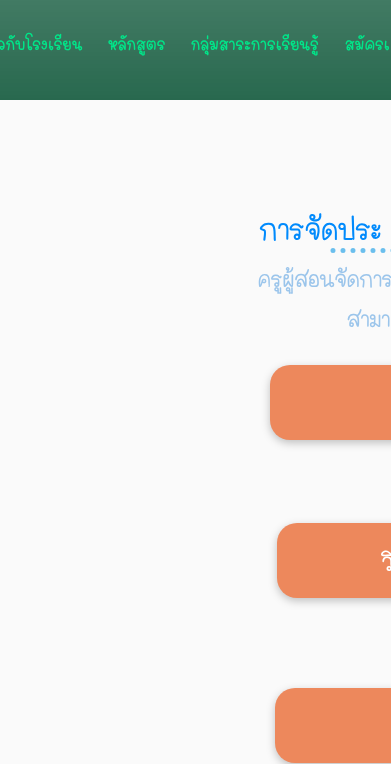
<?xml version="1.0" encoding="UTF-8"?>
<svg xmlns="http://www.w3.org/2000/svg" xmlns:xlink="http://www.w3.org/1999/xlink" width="391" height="764">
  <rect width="100%" height="100%" fill="#fafafa" />
  <rect width="391" height="100" fill="#004d2e" />
  <image x="0" y="0" width="391" height="100" xlink:href="image1.png" />
  <path d="M 333 250.5 h 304" fill="none" stroke="#6bbfed" stroke-width="5" stroke-linecap="round" stroke-dasharray="0 10" />
  <rect x="270" y="368" width="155" height="75" rx="20" fill="#000000" fill-opacity="0.23" filter="blur(4.5px)" />
  <rect x="270" y="365" width="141" height="75" rx="20" fill="#ed885c" />
  <rect x="277" y="526" width="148" height="75" rx="20" fill="#000000" fill-opacity="0.23" filter="blur(4.5px)" />
  <rect x="277" y="523" width="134" height="75" rx="20" fill="#ed885c" />
  <rect x="275" y="691" width="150" height="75" rx="20" fill="#000000" fill-opacity="0.23" filter="blur(4.5px)" />
  <rect x="275" y="688" width="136" height="75" rx="20" fill="#ed885c" />
  <text x="-2" y="50" style="font-family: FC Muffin; font-size: 24px; fill: #00e689">วกับโรงเรียน</text>
  <text x="108" y="50" style="font-family: FC Muffin; font-size: 24px; fill: #00e689">หลักสูตร</text>
  <text x="191" y="50" style="font-family: FC Muffin; font-size: 24px; fill: #00e689">กลุ่มสาระการเรียนรู้</text>
  <text x="345" y="50" style="font-family: FC Muffin; font-size: 24px; fill: #00e689">สมัครเ</text>
  <text x="259" y="240" style="font-family: 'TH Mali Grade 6'; font-size: 44px; font-weight: bold; fill: #008afc">การจัดประ</text>
  <text x="257" y="287" style="font-family: 'TH Mali Grade 6'; font-size: 33px; font-weight: bold; fill: #9bc5eb">ครูผู้สอนจัดการ</text>
  <text x="346" y="327" style="font-family: 'TH Mali Grade 6'; font-size: 33px; font-weight: bold; fill: #9bc5eb">สามา</text>
  <text x="382" y="571" style="font-family: 'TH Mali Grade 6'; font-size: 36px; font-weight: bold; fill: #ffffff">วิ</text>
</svg>
